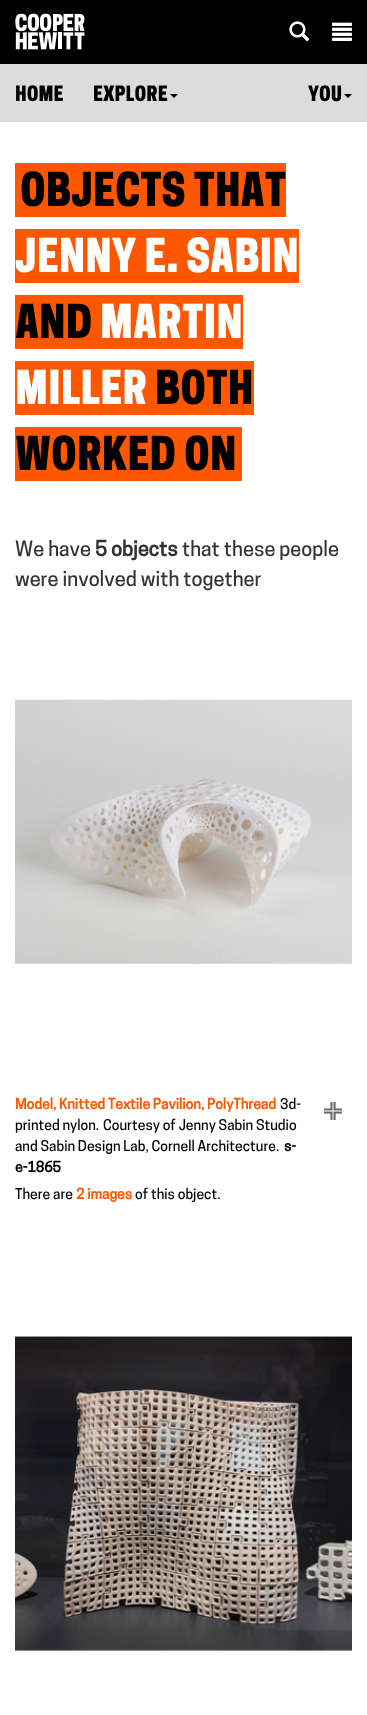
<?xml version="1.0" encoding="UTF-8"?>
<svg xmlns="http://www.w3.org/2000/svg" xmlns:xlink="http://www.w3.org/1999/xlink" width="367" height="1715">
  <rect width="100%" height="100%" fill="#ffffff" />
  <rect width="367" height="64" fill="#000000" />
  <image x="15" y="13" width="70" height="37" xlink:href="image1.png" />
  <image x="289" y="21" width="21" height="21" xlink:href="image2.png" />
  <image x="332" y="22" width="20" height="19" xlink:href="image3.png" />
  <rect y="64" width="367" height="58" fill="#dcdcdc" />
  <path d="M 170 94 h 8 l -4 4 z" fill="#000000" />
  <path d="M 344 94 h 8 l -4 4 z" fill="#000000" />
  <rect x="15" y="163" width="271" height="54" fill="#ff5700" />
  <rect x="15" y="229" width="284" height="54" fill="#ff5700" />
  <rect x="15" y="295" width="228" height="54" fill="#ff5700" />
  <rect x="15" y="361" width="239" height="54" fill="#ff5700" />
  <rect x="15" y="427" width="227" height="54" fill="#ff5700" />
  <image x="15" y="699" width="337" height="265" xlink:href="image4.png" />
  <image x="324" y="1102" width="18" height="18" xlink:href="image5.png" />
  <image x="15" y="1336" width="337" height="315" xlink:href="image6.png" />
  <text x="15" y="101" style="font-family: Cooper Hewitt; font-size: 20px; font-weight: 600; fill: #000000">HOME</text>
  <text x="93" y="101" style="font-family: Cooper Hewitt; font-size: 20px; font-weight: 600; fill: #000000">EXPLORE</text>
  <text x="308" y="101" style="font-family: Cooper Hewitt; font-size: 20px; font-weight: 600; fill: #000000">YOU</text>
  <text x="20" y="206" style="font-family: Cooper Hewitt; font-size: 44px; font-weight: 600; fill: #000000">OBJECTS THAT</text>
  <text x="15" y="272" style="font-family: Cooper Hewitt; font-size: 44px; font-weight: 600; fill: #ffffff">JENNY E. SABIN</text>
  <text x="15" y="338" style="font-family: Cooper Hewitt; font-size: 44px; font-weight: 600; fill: #000000">AND</text>
  <text x="100" y="338" style="font-family: Cooper Hewitt; font-size: 44px; font-weight: 600; fill: #ffffff">MARTIN</text>
  <text x="15" y="404" style="font-family: Cooper Hewitt; font-size: 44px; font-weight: 600; fill: #ffffff">MILLER</text>
  <text x="155" y="404" style="font-family: Cooper Hewitt; font-size: 44px; font-weight: 600; fill: #000000">BOTH</text>
  <text x="15" y="470" style="font-family: Cooper Hewitt; font-size: 44px; font-weight: 600; fill: #000000">WORKED ON</text>
  <text x="15" y="556" style="font-family: Cooper Hewitt; font-size: 20px; font-weight: 500; fill: #333333">We have</text>
  <text x="95" y="556" style="font-family: Cooper Hewitt; font-size: 20px; font-weight: bold; fill: #333333">5 objects</text>
  <text x="182" y="556" style="font-family: Cooper Hewitt; font-size: 20px; font-weight: 500; fill: #333333">that these people</text>
  <text x="15" y="586" style="font-family: Cooper Hewitt; font-size: 20px; font-weight: 500; fill: #333333">were involved with together</text>
  <text x="15" y="1109" style="font-family: Cooper Hewitt; font-size: 14px; font-weight: bold; fill: #ff5700">Model, Knitted Textile Pavilion, PolyThread</text>
  <text x="280" y="1109" style="font-family: Cooper Hewitt; font-size: 14px; font-weight: 500; fill: #000000">3d-</text>
  <text x="15" y="1130" style="font-family: Cooper Hewitt; font-size: 14px; font-weight: 500; fill: #000000">printed nylon.</text>
  <text x="103" y="1130" style="font-family: Cooper Hewitt; font-size: 14px; font-weight: 500; fill: #000000">Courtesy of Jenny Sabin Studio</text>
  <text x="15" y="1151" style="font-family: Cooper Hewitt; font-size: 14px; font-weight: 500; fill: #000000">and Sabin Design Lab, Cornell Architecture.</text>
  <text x="284" y="1151" style="font-family: Cooper Hewitt; font-size: 14px; font-weight: bold; fill: #000000">s-</text>
  <text x="15" y="1172" style="font-family: Cooper Hewitt; font-size: 14px; font-weight: bold; fill: #000000">e-1865</text>
  <text x="15" y="1199" style="font-family: Cooper Hewitt; font-size: 14px; font-weight: 500; fill: #000000">There are</text>
  <text x="76" y="1199" style="font-family: Cooper Hewitt; font-size: 14px; font-weight: bold; fill: #ff5700">2 images</text>
  <text x="135" y="1199" style="font-family: Cooper Hewitt; font-size: 14px; font-weight: 500; fill: #000000">of this object.</text>
</svg>
